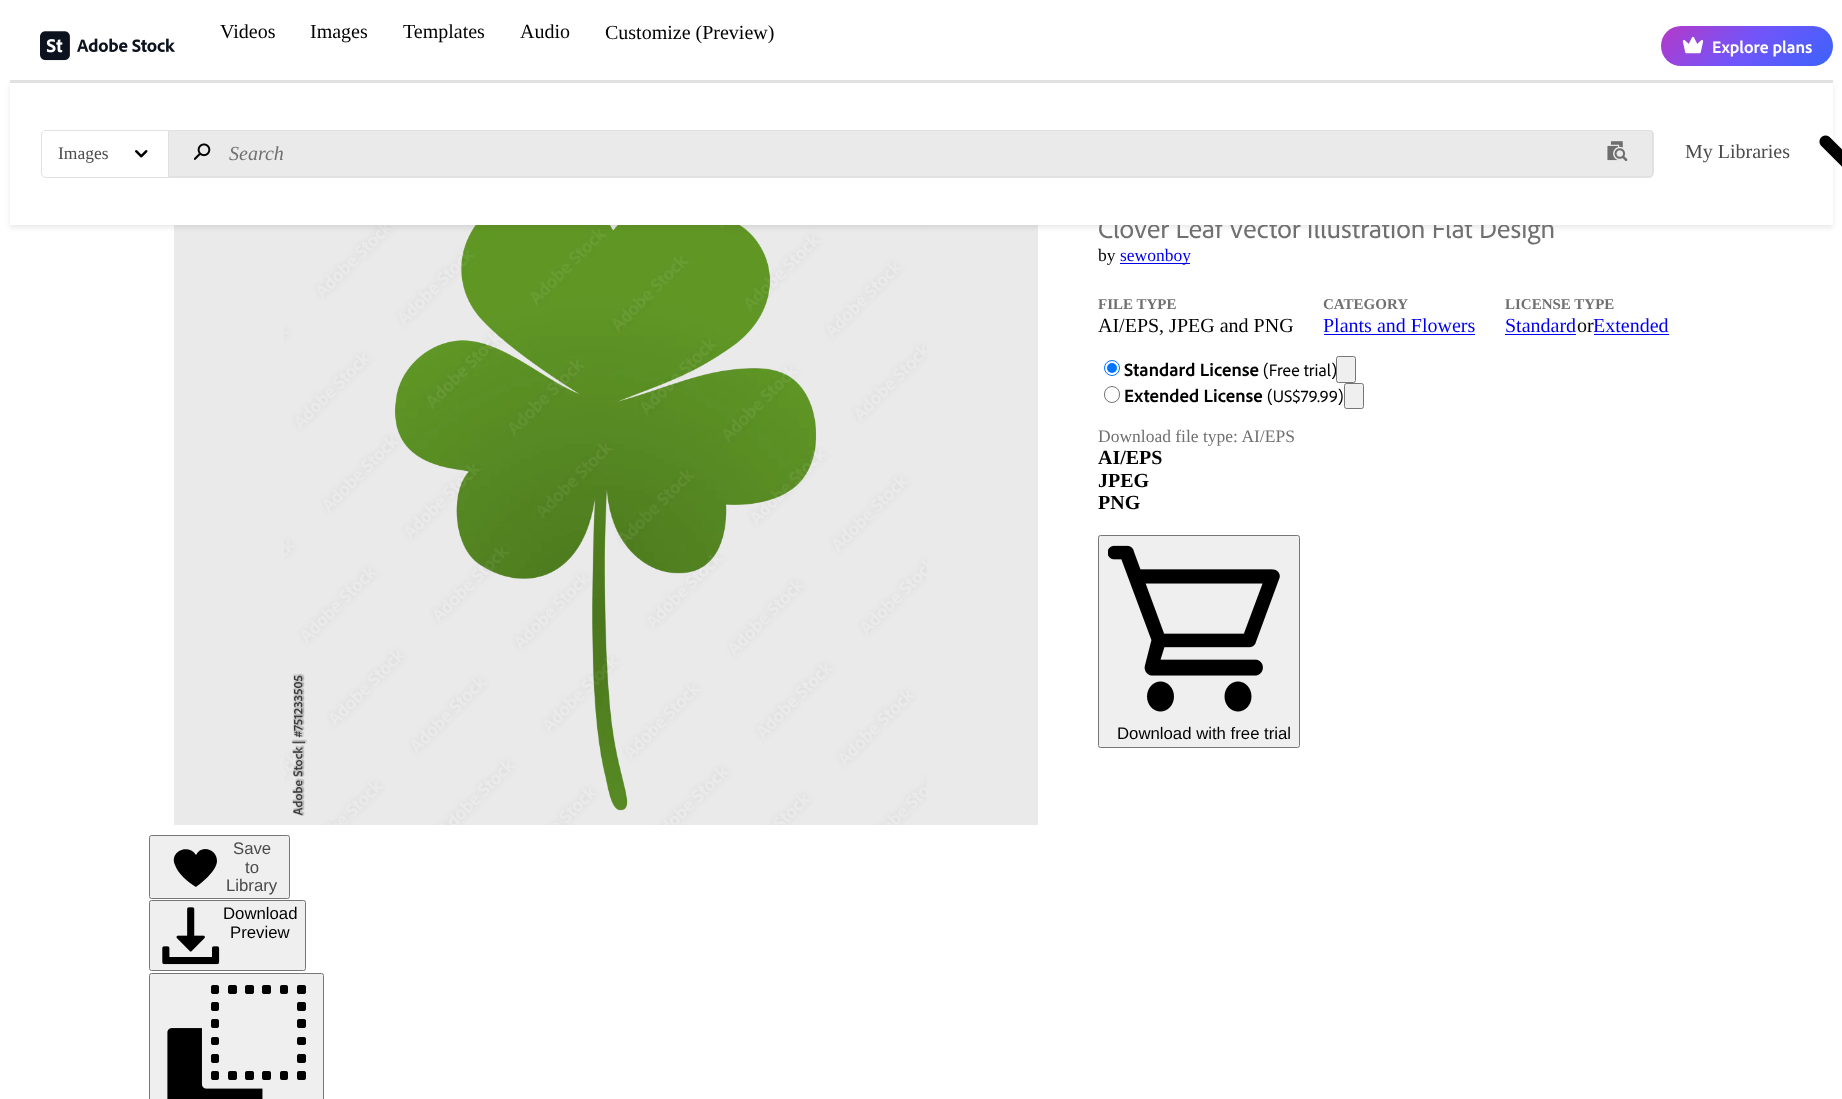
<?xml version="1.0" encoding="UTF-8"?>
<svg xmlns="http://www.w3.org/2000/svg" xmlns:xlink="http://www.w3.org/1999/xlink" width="1842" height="1099">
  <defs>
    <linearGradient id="g1" gradientUnits="userSpaceOnUse" x1="1694" y1="-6.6" x2="1800" y2="99"><stop offset="0" stop-color="#b539c8" /><stop offset="0.5" stop-color="#7155fa" /><stop offset="1" stop-color="#3b63fb" /></linearGradient>
  </defs>
  <rect width="100%" height="100%" fill="#ffffff" />
  <rect x="174" y="225" width="864" height="600" fill="#eaeaea" />
  <image x="284" y="225" width="643" height="600" xlink:href="image8.png" />
  <rect x="10" y="85" width="1823" height="143" fill="#343434" fill-opacity="0.1" filter="blur(2.5px)" />
  <rect x="10" y="80" width="1823" height="3" fill="#e1e1e1" />
  <image x="40" y="31" width="135" height="30" xlink:href="image1.png" />
  <rect x="1661" y="26" width="172" height="40" rx="20" fill="url(#g1)" />
  <image x="1682" y="36" width="22" height="18" xlink:href="image2.png" />
  <rect x="1120" y="263" width="70" height="1" fill="#0000ee" />
  <rect x="1324" y="334" width="151" height="1" fill="#0000ee" />
  <rect x="1505" y="334" width="71" height="1" fill="#0000ee" />
  <rect x="1594" y="334" width="75" height="1" fill="#0000ee" />
  <circle cx="1112" cy="368" r="7.5" fill="none" stroke="#0075ff" />
  <circle cx="1112" cy="368" r="5" fill="#0075ff" />
  <rect x="1104.5" y="386.5" width="15" height="16" rx="7.5" fill="none" stroke="#767676" />
  <rect x="1344.5" y="383.5" width="19" height="25" rx="2" fill="#efefef" stroke="#767676" />
  <rect x="1098.5" y="535.5" width="201" height="212" rx="2" fill="#efefef" stroke="#767676" />
  <image x="1108" y="545" width="172" height="167" xlink:href="image7.png" />
  <rect x="149.5" y="835.5" width="140" height="63" rx="2" fill="#efefef" stroke="#767676" />
  <path d="M 205 849 c -4 0 -7 2 -9 6 c -8 -12 -27 -3 -21 10 c 3 9 13 17 21 22 c 0 0 21 -15 21 -26 c 0 -7 -5 -12 -12 -12 z" fill="#000000" fill-rule="evenodd" />
  <rect x="149.5" y="900.5" width="156" height="70" rx="2" fill="#efefef" stroke="#767676" />
  <image x="162" y="907" width="58" height="58" xlink:href="image9.png" />
  <rect x="149.5" y="973.5" width="174" height="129" rx="2" fill="#efefef" stroke="#767676" />
  <image x="167" y="985" width="139" height="114" xlink:href="image10.png" />
  <text x="220" y="38" style="font-family: Liberation Serif; font-size: 20px; fill: #000000">Videos</text>
  <text x="310" y="38" style="font-family: Liberation Serif; font-size: 20px; fill: #000000">Images</text>
  <text x="403" y="38" style="font-family: Liberation Serif; font-size: 20px; fill: #000000">Templates</text>
  <text x="520" y="38" style="font-family: Liberation Serif; font-size: 20px; fill: #000000">Audio</text>
  <text x="605" y="39" style="font-family: Liberation Serif; font-size: 20px; fill: #000000">Customize (Preview)</text>
  <text x="1712" y="53" style="font-family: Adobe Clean; font-size: 17.5px; font-weight: bold; fill: #ffffff">Explore plans</text>
  <text x="1098" y="238" style="font-family: Adobe Clean; font-size: 27.5px; fill: #707070">Clover Leaf Vector Illustration Flat Design</text>
  <rect x="10" y="83" width="1823" height="142" fill="#ffffff" />
  <image x="1819" y="135" width="23" height="32" xlink:href="image6.png" />
  <text x="1685" y="158" style="font-family: Liberation Serif; font-size: 20px; fill: #4b4b4b">My Libraries</text>
  <path d="M 169 131 h 1480 c 2 0 4 2 4 4 v 37 c 0 2 -2 4 -4 4 h -1480 z" fill="#eaeaea" />
  <path d="M 169 130 h 1480 c 3 0 5 2 5 5 v 37 c 0 3 -2 6 -5 6 h -1480 z m 0 1 h 1480 c 2 0 3 2 3 4 v 37 c 0 3 -1 4 -3 4 h -1480 z" fill="#e1e1e1" fill-rule="evenodd" />
  <image x="1607" y="141" width="21" height="20" xlink:href="image5.png" />
  <image x="194" y="143" width="17" height="17" xlink:href="image4.png" />
  <text x="229" y="160" style="font-family: Liberation Serif; font-size: 20px; font-style: italic; fill: #707070">Search</text>
  <path d="M 46 130.5 h 122.5 v 47 h -122.5 c -2.5 0 -4.5 -2 -4.5 -4.5 v -38 c 0 -2.5 2 -4.5 4.5 -4.5 z" fill="none" stroke="#e1e1e1" />
  <image x="135" y="150" width="13" height="8" xlink:href="image3.png" />
  <text x="58" y="159" style="font-family: Liberation Serif; font-size: 17.5px; fill: #4b4b4b">Images</text>
  <rect x="43" y="131" width="2" height="1" fill="#ffffff" />
  <text x="1098" y="261" style="font-family: Liberation Serif; font-size: 17.5px; fill: #000000">by</text>
  <text x="1120" y="261" style="font-family: Liberation Serif; font-size: 17.5px; fill: #0000ee">sewonboy</text>
  <text x="1098" y="309" style="font-family: Liberation Serif; font-size: 15px; font-weight: bold; fill: #707070">FILE TYPE</text>
  <text x="1098" y="332" style="font-family: Liberation Serif; font-size: 20px; fill: #000000">AI/EPS, JPEG and PNG</text>
  <text x="1323" y="309" style="font-family: Liberation Serif; font-size: 15px; font-weight: bold; fill: #707070">CATEGORY</text>
  <text x="1323" y="332" style="font-family: Liberation Serif; font-size: 20px; fill: #0000ee">Plants and Flowers</text>
  <text x="1505" y="309" style="font-family: Liberation Serif; font-size: 15px; font-weight: bold; fill: #707070">LICENSE TYPE</text>
  <text x="1505" y="332" style="font-family: Liberation Serif; font-size: 20px; fill: #0000ee">Standard</text>
  <text x="1577" y="332" style="font-family: Liberation Serif; font-size: 20px; fill: #000000">or</text>
  <text x="1593" y="332" style="font-family: Liberation Serif; font-size: 20px; fill: #0000ee">Extended</text>
  <text x="1124" y="376" style="font-family: Adobe Clean; font-size: 18.75px; font-weight: bold; fill: #000000">Standard License</text>
  <text x="1263" y="376" style="font-family: Adobe Clean; font-size: 17.5px; fill: #000000">(Free trial)</text>
  <rect x="1336.5" y="356.5" width="19" height="26" rx="2" fill="#efefef" stroke="#767676" />
  <text x="1124" y="402" style="font-family: Adobe Clean; font-size: 18.75px; font-weight: bold; fill: #000000">Extended License</text>
  <text x="1267" y="402" style="font-family: Adobe Clean; font-size: 17.5px; fill: #000000">(US$79.99)</text>
  <text x="1098" y="442" style="font-family: Liberation Serif; font-size: 17.5px; fill: #707070">Download file type: AI/EPS</text>
  <text x="1098" y="464" style="font-family: Liberation Serif; font-size: 20px; font-weight: bold; fill: #000000">AI/EPS</text>
  <text x="1098" y="487" style="font-family: Liberation Serif; font-size: 20px; font-weight: bold; fill: #000000">JPEG</text>
  <text x="1098" y="509" style="font-family: Liberation Serif; font-size: 20px; font-weight: bold; fill: #000000">PNG</text>
  <text x="1117" y="739" style="font-family: Liberation Sans; font-size: 16.75px; fill: #000000">Download with free trial</text>
  <text x="233" y="854" style="font-family: Liberation Sans; font-size: 16.75px; fill: #4b4b4b">Save</text>
  <text x="245" y="873" style="font-family: Liberation Sans; font-size: 16.75px; fill: #4b4b4b">to</text>
  <text x="226" y="891" style="font-family: Liberation Sans; font-size: 16.75px; fill: #4b4b4b">Library</text>
  <text x="223" y="919" style="font-family: Liberation Sans; font-size: 16.75px; fill: #000000">Download</text>
  <text x="230" y="938" style="font-family: Liberation Sans; font-size: 16.75px; fill: #000000">Preview</text>
</svg>
